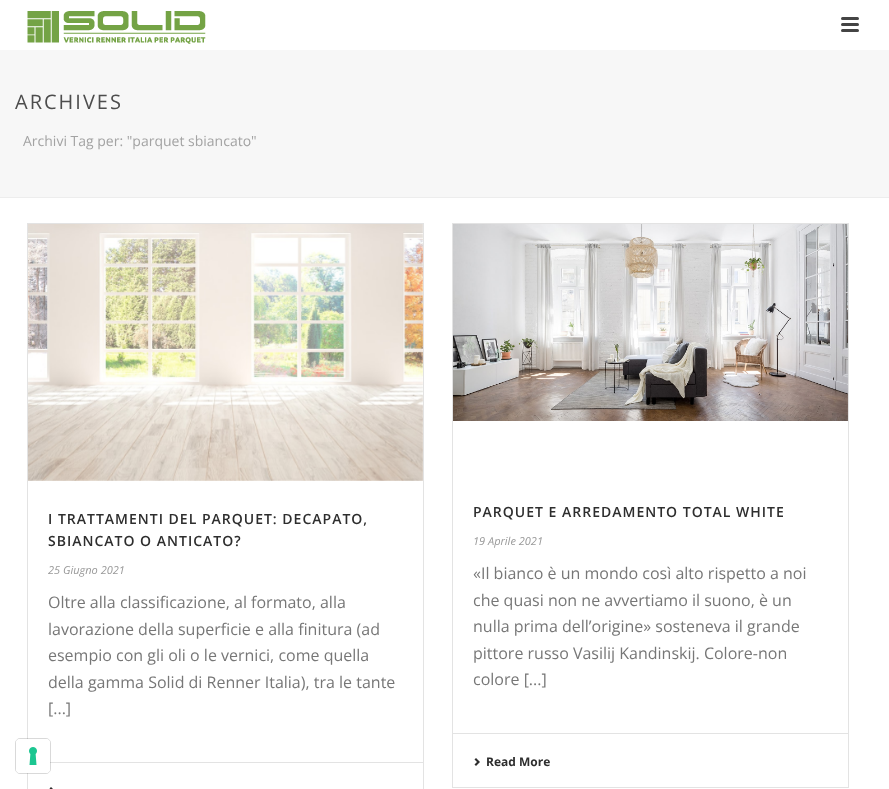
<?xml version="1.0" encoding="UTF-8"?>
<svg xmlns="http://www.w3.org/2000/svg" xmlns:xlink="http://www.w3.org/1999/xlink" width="889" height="789">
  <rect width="100%" height="100%" fill="#ffffff" />
  <rect y="50" width="889" height="147" fill="#f7f7f7" />
  <rect y="197" width="889" height="1" fill="#ededed" />
  <image x="27" y="11" width="179" height="33" xlink:href="image1.png" />
  <rect x="841" y="17" width="18" height="3" rx="1.5" fill="#444444" />
  <rect x="841" y="23" width="18" height="3" rx="1.5" fill="#444444" />
  <rect x="841" y="29" width="18" height="3" rx="1.5" fill="#444444" />
  <rect x="27.5" y="223.5" width="396" height="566" fill="none" stroke="#e3e3e3" />
  <image x="28" y="224" width="395" height="257" xlink:href="image2.png" />
  <rect x="50" y="762" width="373" height="1" fill="#e3e3e3" />
  <image x="49" y="787" width="4" height="2" xlink:href="image3.png" />
  <rect x="452.5" y="223.5" width="396" height="564" fill="none" stroke="#e3e3e3" />
  <image x="453" y="224" width="395" height="197" xlink:href="image4.png" />
  <rect x="453" y="733" width="395" height="1" fill="#e3e3e3" />
  <image x="474" y="758" width="6" height="8" xlink:href="image5.png" />
  <rect x="15.5" y="738.5" width="35" height="35" rx="4.5" fill="none" stroke="#000000" stroke-opacity="0.15" />
  <rect x="16" y="739" width="34" height="34" rx="4" fill="#ffffff" />
  <image x="29" y="747" width="8" height="18" xlink:href="image6.png" />
  <text x="15" y="109" style="font-family: Open Sans; font-size: 20px; letter-spacing: 2px; fill: #4d4d4d">ARCHIVES</text>
  <text x="23" y="146" style="font-family: Open Sans; font-size: 14px; fill: #a3a3a3">Archivi Tag per: "parquet sbiancato"</text>
  <text x="48" y="524" style="font-family: Open Sans; font-size: 14px; font-weight: 600; letter-spacing: 1px; fill: #2e2e2e">I TRATTAMENTI DEL PARQUET: DECAPATO,</text>
  <text x="48" y="546" style="font-family: Open Sans; font-size: 14px; font-weight: 600; letter-spacing: 1px; fill: #2e2e2e">SBIANCATO O ANTICATO?</text>
  <text x="48" y="574" style="font-family: Open Sans; font-size: 11px; font-style: italic; fill: #999999">25 Giugno 2021</text>
  <text x="48" y="608" style="font-family: Open Sans; font-size: 16px; fill: #777777">Oltre alla classificazione, al formato, alla</text>
  <text x="48" y="635" style="font-family: Open Sans; font-size: 16px; fill: #777777">lavorazione della superficie e alla finitura (ad</text>
  <text x="48" y="661" style="font-family: Open Sans; font-size: 16px; fill: #777777">esempio con gli oli o le vernici, come quella</text>
  <text x="48" y="688" style="font-family: Open Sans; font-size: 16px; fill: #777777">della gamma Solid di Renner Italia), tra le tante</text>
  <text x="48" y="714" style="font-family: Open Sans; font-size: 16px; fill: #777777">[...]</text>
  <text x="473" y="517" style="font-family: Open Sans; font-size: 14px; font-weight: 600; letter-spacing: 1px; fill: #2e2e2e">PARQUET E ARREDAMENTO TOTAL WHITE</text>
  <text x="473" y="545" style="font-family: Open Sans; font-size: 11px; font-style: italic; fill: #999999">19 Aprile 2021</text>
  <text x="473" y="579" style="font-family: Open Sans; font-size: 16px; fill: #777777">«Il bianco è un mondo così alto rispetto a noi</text>
  <text x="473" y="606" style="font-family: Open Sans; font-size: 16px; fill: #777777">che quasi non ne avvertiamo il suono, è un</text>
  <text x="473" y="632" style="font-family: Open Sans; font-size: 16px; fill: #777777">nulla prima dell’origine» sosteneva il grande</text>
  <text x="473" y="659" style="font-family: Open Sans; font-size: 16px; fill: #777777">pittore russo Vasilij Kandinskij. Colore-non</text>
  <text x="473" y="685" style="font-family: Open Sans; font-size: 16px; fill: #777777">colore [...]</text>
  <text x="486" y="766" style="font-family: Open Sans; font-size: 12px; font-weight: bold; fill: #2e2e2e">Read More</text>
</svg>
